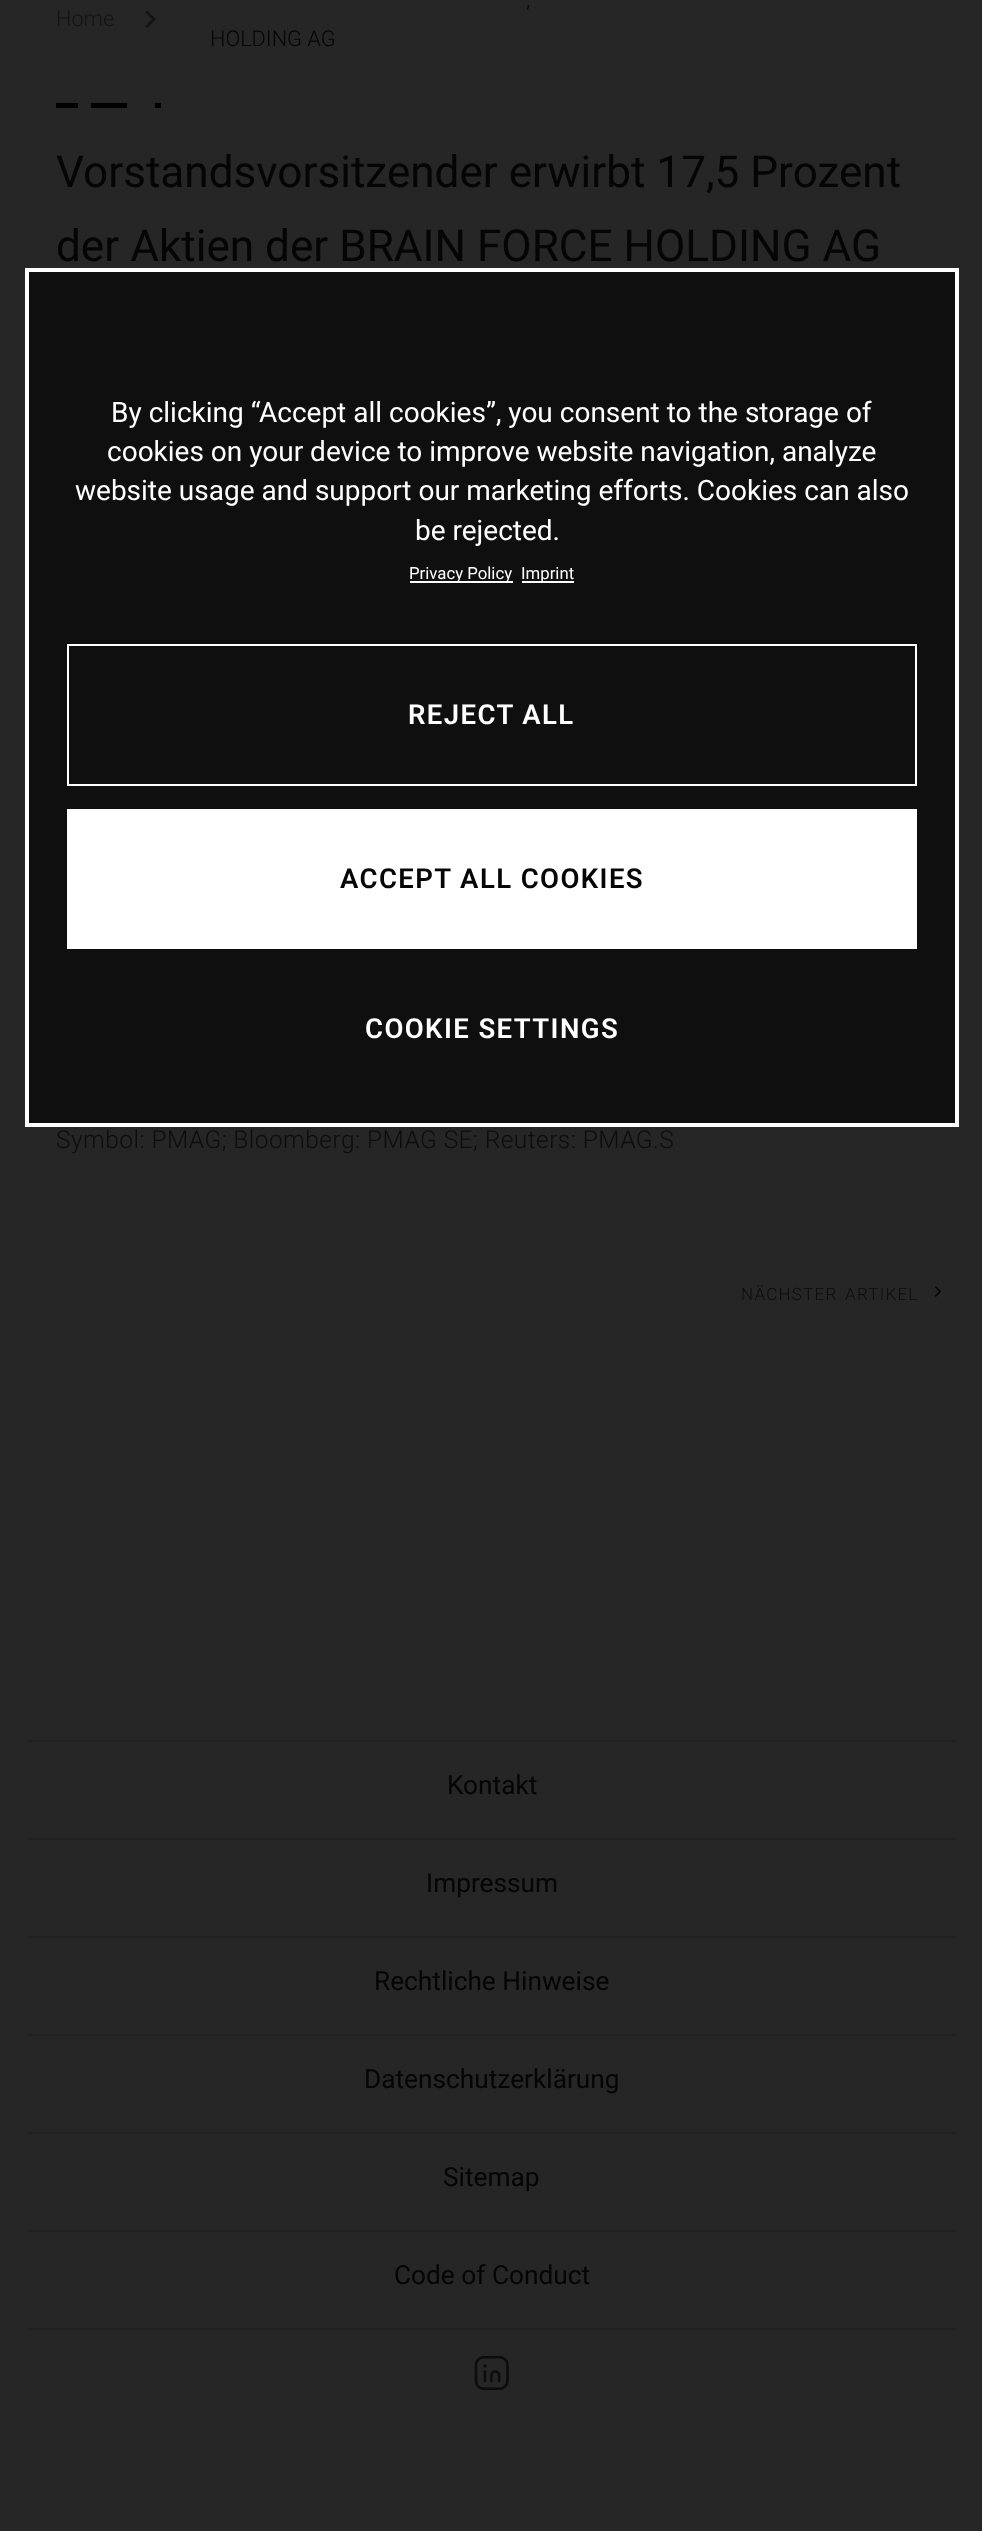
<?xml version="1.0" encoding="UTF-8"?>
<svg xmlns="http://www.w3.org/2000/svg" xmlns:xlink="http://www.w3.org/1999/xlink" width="982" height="2531">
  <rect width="100%" height="100%" fill="#262626" />
  <image x="145" y="11" width="11" height="17" xlink:href="image1.png" />
  <rect x="91" y="103" width="36" height="5" fill="#000000" />
  <rect x="56" y="103" width="22" height="5" fill="#000000" />
  <rect x="155" y="103" width="6" height="5" fill="#000000" />
  <image x="935" y="1286" width="6" height="11" xlink:href="image2.png" />
  <rect x="28" y="1740" width="928" height="2" fill="#212121" />
  <rect x="28" y="1838" width="928" height="2" fill="#212121" />
  <rect x="28" y="1936" width="928" height="2" fill="#212121" />
  <rect x="28" y="2034" width="928" height="2" fill="#212121" />
  <rect x="28" y="2132" width="928" height="2" fill="#212121" />
  <rect x="28" y="2230" width="928" height="2" fill="#212121" />
  <rect x="28" y="2328" width="928" height="2" fill="#212121" />
  <image x="474" y="2355" width="35" height="36" xlink:href="image3.png" />
  <rect x="27" y="270" width="930" height="855" fill="#0f0f0f" stroke="#ffffff" stroke-width="4" />
  <rect x="410" y="581" width="103" height="2" fill="#ffffff" />
  <rect x="522" y="581" width="52" height="2" fill="#ffffff" />
  <rect x="68" y="645" width="848" height="140" fill="none" stroke="#ffffff" stroke-width="2" />
  <rect x="67" y="809" width="850" height="140" fill="#ffffff" />
  <text x="56" y="26" style="font-family: Roboto; font-size: 21.75px; font-weight: 300; fill: #141414">Home</text>
  <text x="526" y="7" style="font-family: Roboto; font-size: 21.75px; font-weight: 300; fill: #050505">,</text>
  <text x="210" y="46" style="font-family: Roboto; font-size: 21.75px; font-weight: 300; fill: #050505">HOLDING AG</text>
  <text x="56" y="187" style="font-family: Roboto; font-size: 44.1px; fill: #050505">Vorstandsvorsitzender erwirbt 17,5 Prozent</text>
  <text x="56" y="261" style="font-family: Roboto; font-size: 44.1px; fill: #050505">der Aktien der BRAIN FORCE HOLDING AG</text>
  <text x="56" y="1148" style="font-family: Roboto; font-size: 24.5px; font-weight: 300; letter-spacing: 0.45px; fill: #0d0d0e">Symbol: PMAG; Bloomberg: PMAG SE; Reuters: PMAG.S</text>
  <text x="741" y="1300" style="font-family: Roboto; font-size: 17px; font-weight: 300; letter-spacing: 1.25px; fill: #0d0d0e">NÄCHSTER</text>
  <text x="845" y="1300" style="font-family: Roboto; font-size: 17px; font-weight: 300; letter-spacing: 1.25px; fill: #0d0d0e">ARTIKEL</text>
  <text x="447" y="1794" style="font-family: Roboto; font-size: 26.25px; fill: #050505">Kontakt</text>
  <text x="426" y="1892" style="font-family: Roboto; font-size: 26.25px; fill: #050505">Impressum</text>
  <text x="374" y="1990" style="font-family: Roboto; font-size: 26.25px; fill: #050505">Rechtliche Hinweise</text>
  <text x="364" y="2088" style="font-family: Roboto; font-size: 26.25px; fill: #050505">Datenschutzerklärung</text>
  <text x="443" y="2186" style="font-family: Roboto; font-size: 26.25px; fill: #050505">Sitemap</text>
  <text x="394" y="2284" style="font-family: Roboto; font-size: 26.25px; fill: #050505">Code of Conduct</text>
  <text x="111" y="422" style="font-family: 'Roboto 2'; font-size: 28px; fill: #ffffff">By clicking “Accept all cookies”, you consent to the storage of</text>
  <text x="107" y="461" style="font-family: 'Roboto 2'; font-size: 28px; fill: #ffffff">cookies on your device to improve website navigation, analyze</text>
  <text x="75" y="500" style="font-family: 'Roboto 2'; font-size: 28px; fill: #ffffff">website usage and support our marketing efforts. Cookies can also</text>
  <text x="415" y="540" style="font-family: 'Roboto 2'; font-size: 28px; fill: #ffffff">be rejected.</text>
  <text x="409" y="579" style="font-family: 'Roboto 2'; font-size: 16.75px; fill: #ffffff">Privacy Policy</text>
  <text x="521" y="579" style="font-family: 'Roboto 2'; font-size: 16.75px; fill: #ffffff">Imprint</text>
  <text x="408" y="724" style="font-family: Roboto; font-size: 27.5px; font-weight: 600; letter-spacing: 1.4px; fill: #ffffff">REJECT ALL</text>
  <text x="340" y="888" style="font-family: Roboto; font-size: 27.5px; font-weight: 600; letter-spacing: 1.4px; fill: #050505">ACCEPT ALL COOKIES</text>
  <text x="365" y="1038" style="font-family: Roboto; font-size: 27.5px; font-weight: 600; letter-spacing: 1.4px; fill: #ffffff">COOKIE SETTINGS</text>
</svg>
